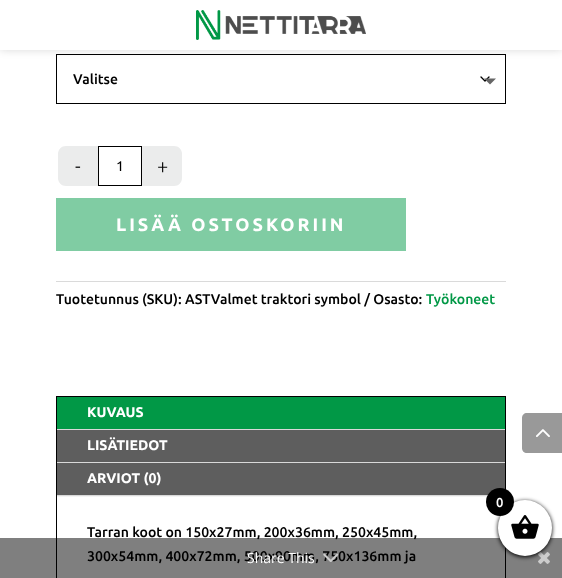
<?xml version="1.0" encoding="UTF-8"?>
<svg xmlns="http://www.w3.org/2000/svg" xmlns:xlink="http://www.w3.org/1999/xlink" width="562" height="578">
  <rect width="100%" height="100%" fill="#ffffff" />
  <path d="M 481 77 l 4 4 l 4 -4" fill="none" stroke="#000000" stroke-width="1.3" stroke-linecap="round" stroke-linejoin="round" />
  <rect x="56.5" y="54.5" width="449" height="49" fill="none" stroke="#000000" />
  <rect width="562" height="50" fill="#000000" fill-opacity="0.15" filter="blur(4px)" />
  <rect width="562" height="50" fill="#ffffff" />
  <image x="196" y="10" width="170" height="30" xlink:href="image1.png" />
  <path d="M 484 78.5 h 12 l -6 6 z" fill="#666666" />
  <path d="M 66 146 h 32 v 40 h -32 c -4.5 0 -8 -3.5 -8 -8 v -24 c 0 -4.5 3.5 -8 8 -8 z" fill="#ebecec" />
  <rect x="98.5" y="146.5" width="43" height="39" fill="none" stroke="#000000" />
  <path d="M 142 146 h 32 c 4.5 0 8 3.5 8 8 v 24 c 0 4.5 -3.5 8 -8 8 h -32 z" fill="#ebecec" />
  <rect x="56" y="198" width="350" height="53" fill="#80cca3" />
  <rect x="56" y="281" width="450" height="1" fill="#dadada" />
  <rect x="56.5" y="396.5" width="449" height="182" fill="none" stroke="#000000" />
  <rect x="57" y="496" width="431" height="1" fill="#f4f4f4" />
  <rect x="57" y="397" width="448" height="32" fill="#019846" />
  <rect x="57" y="429" width="448" height="1" fill="#d9d9d9" />
  <rect x="57" y="430" width="448" height="32" fill="#5e5e5e" />
  <rect x="57" y="462" width="448" height="1" fill="#d9d9d9" />
  <rect x="57" y="463" width="448" height="32" fill="#5e5e5e" />
  <rect x="57" y="495" width="431" height="1" fill="#d9d9d9" />
  <path d="M 527 413 h 35 v 40 h -35 c -3 0 -5 -2 -5 -5 v -30 c 0 -3 2 -5 5 -5 z" fill="#999999" />
  <image x="536" y="429" width="14" height="8" xlink:href="image2.png" />
  <text x="73" y="84" style="font-family: Ubuntu; font-size: 14px; font-weight: 500; fill: #000000">Valitse</text>
  <text x="75" y="173" style="font-family: Ubuntu; font-size: 20px; font-weight: 300; fill: #000000">-</text>
  <text x="116" y="171" style="font-family: Ubuntu; font-size: 14px; fill: #000000">1</text>
  <text x="157" y="173" style="font-family: Ubuntu; font-size: 20px; font-weight: 300; fill: #000000">+</text>
  <text x="116" y="231" style="font-family: Ubuntu; font-size: 18px; font-weight: bold; letter-spacing: 3px; fill: #ffffff">LISÄÄ OSTOSKORIIN</text>
  <text x="56" y="304" style="font-family: Ubuntu; font-size: 14px; font-weight: 500; fill: #000000">Tuotetunnus (SKU): ASTValmet traktori symbol / Osasto:</text>
  <text x="426" y="304" style="font-family: Ubuntu; font-size: 14px; font-weight: 500; fill: #019846">Työkoneet</text>
  <text x="87" y="417" style="font-family: Ubuntu; font-size: 14px; font-weight: bold; fill: #ffffff">KUVAUS</text>
  <text x="87" y="450" style="font-family: Ubuntu; font-size: 14px; font-weight: bold; fill: #ffffff">LISÄTIEDOT</text>
  <text x="87" y="483" style="font-family: Ubuntu; font-size: 14px; font-weight: bold; fill: #ffffff">ARVIOT (0)</text>
  <text x="87" y="537" style="font-family: Ubuntu; font-size: 14px; font-weight: 500; fill: #000000">Tarran koot on 150x27mm, 200x36mm, 250x45mm,</text>
  <text x="87" y="561" style="font-family: Ubuntu; font-size: 14px; font-weight: 500; fill: #000000">300x54mm, 400x72mm, 500x90mm, 750x136mm ja</text>
  <rect y="538" width="562" height="40" fill="#000000" fill-opacity="0.5" />
  <text x="247" y="563" style="font-family: Open Sans; font-size: 14px; fill: #ffffff">Share This</text>
  <image x="323" y="553" width="16" height="9" xlink:href="image4.png" />
  <image x="538" y="552" width="12" height="12" xlink:href="image5.png" />
  <rect x="498" y="501" width="54" height="56" rx="27" fill="#000000" filter="blur(2px)" />
  <ellipse cx="525" cy="528" rx="27" ry="28" fill="#ffffff" />
  <circle cx="500" cy="502" r="14" fill="#000000" />
  <image x="511" y="515" width="28" height="24" xlink:href="image3.png" />
  <text x="496" y="507" style="font-family: Ubuntu; font-size: 13px; font-weight: 500; fill: #ffffff">0</text>
</svg>
